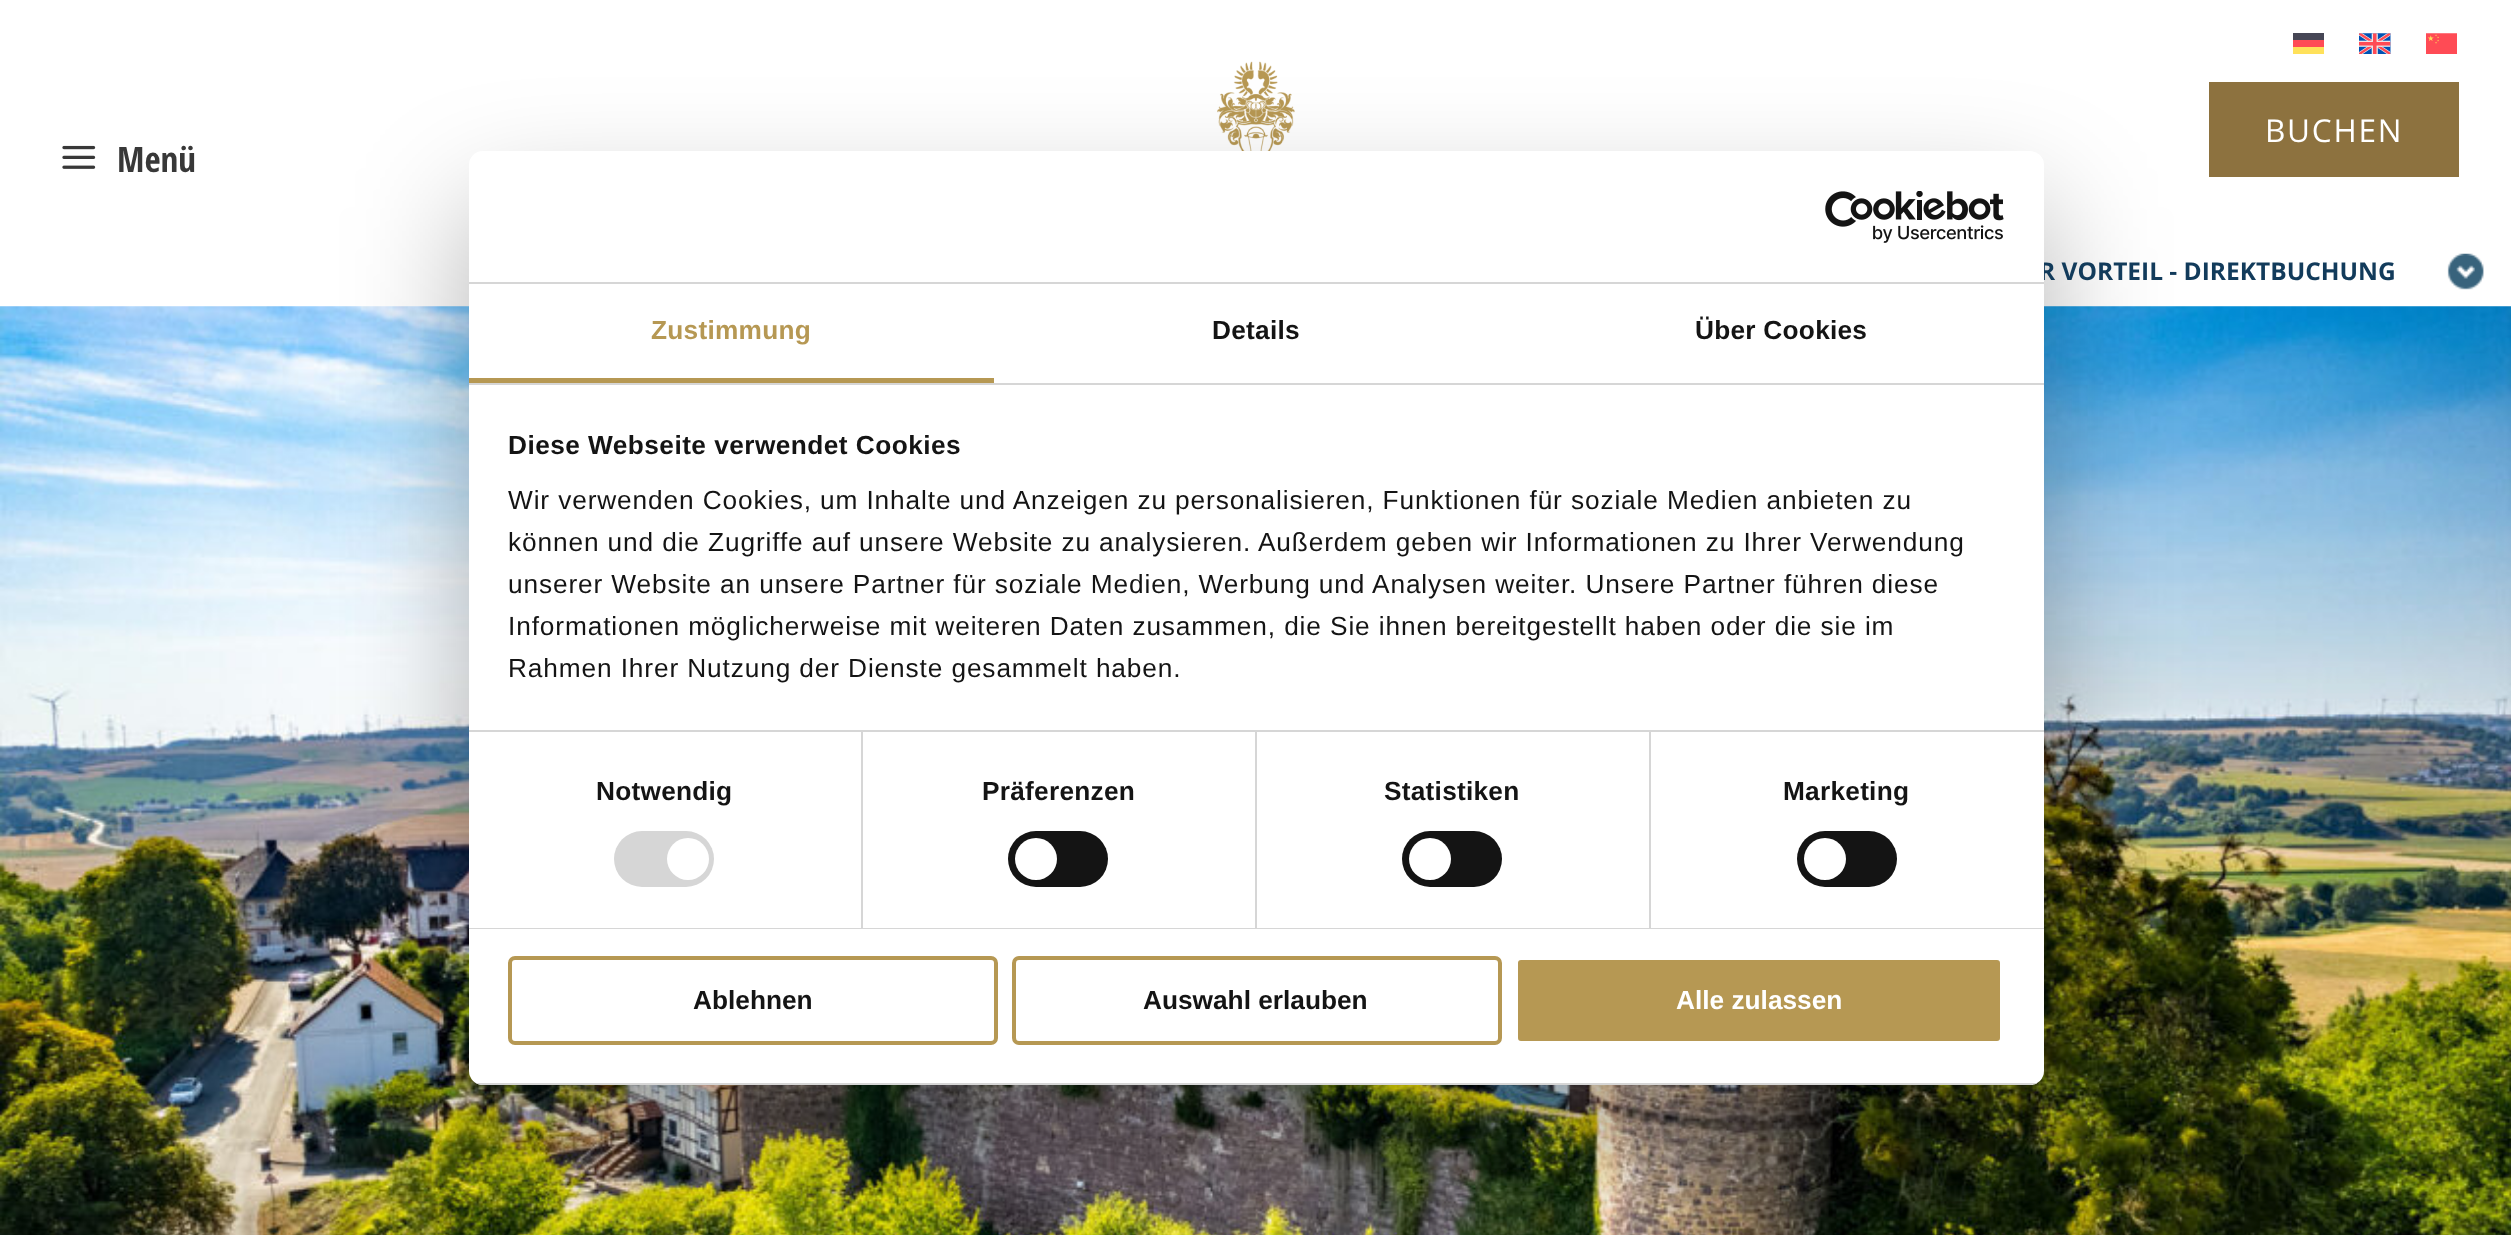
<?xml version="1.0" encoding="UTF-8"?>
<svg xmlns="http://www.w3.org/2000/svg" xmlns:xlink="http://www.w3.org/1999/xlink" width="2511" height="1235">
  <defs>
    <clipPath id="clip1"><rect x="469" y="151" width="1575" height="934" rx="14" /></clipPath>
  </defs>
  <rect width="100%" height="100%" fill="#ffffff" />
  <rect x="2293" y="33" width="31" height="7" fill="#464655" />
  <rect x="2293" y="40" width="31" height="7" fill="#ff4b55" />
  <rect x="2293" y="47" width="31" height="7" fill="#ffe15a" />
  <image x="2359" y="33" width="32" height="21" xlink:href="image1.png" />
  <image x="2426" y="33" width="31" height="21" xlink:href="image2.png" />
  <image x="1217" y="61" width="78" height="90" xlink:href="image3.png" />
  <rect x="2209" y="82" width="250" height="95" fill="#8d723f" />
  <image x="62" y="145" width="34" height="24" xlink:href="image4.png" />
  <image x="0" y="306" width="2511" height="929" xlink:href="image5.png" />
  <image x="2447" y="253" width="37" height="37" xlink:href="image6.png" />
  <rect x="469" y="207" width="1575" height="934" rx="14" fill="#000000" fill-opacity="0.3" filter="blur(59.5px)" />
  <text x="2265" y="142" style="font-family: Open Sans; font-size: 31.5px; letter-spacing: 1.75px; fill: #ffffff">BUCHEN</text>
  <text x="117" y="172" style="font-family: Open Sans Condensed; font-size: 35px; font-weight: bold; fill: #383838">Menü</text>
  <text x="2039" y="280" style="font-family: Open Sans; font-size: 24.5px; font-weight: bold; fill: #123b5b">R VORTEIL - DIREKTBUCHUNG</text>
  <rect x="469" y="151" width="1575" height="934" rx="14" fill="#ffffff" />
  <rect x="469" y="282" width="1575" height="2" fill="#d6d6d6" />
  <image x="1825" y="191" width="179" height="52" xlink:href="image7.png" />
  <rect x="469" y="383" width="1575" height="2" fill="#d6d6d6" />
  <rect x="469" y="378" width="525" height="5" fill="#b69853" />
  <text x="651" y="339" style="font-family: Liberation Sans; font-size: 26.25px; font-weight: bold; letter-spacing: 0.25px; fill: #b69853">Zustimmung</text>
  <text x="1212" y="339" style="font-family: Liberation Sans; font-size: 26.25px; font-weight: bold; letter-spacing: 0.25px; fill: #141414">Details</text>
  <text x="1695" y="339" style="font-family: Liberation Sans; font-size: 26.25px; font-weight: bold; letter-spacing: 0.25px; fill: #141414">Über Cookies</text>
  <rect x="469" y="730" width="1575" height="2" fill="#d6d6d6" />
  <text x="508" y="454" style="font-family: Liberation Sans; font-size: 26.25px; font-weight: bold; letter-spacing: 0.45px; fill: #141414">Diese Webseite verwendet Cookies</text>
  <text x="508" y="509" style="font-family: Liberation Sans; font-size: 26.25px; letter-spacing: 0.88px; fill: #141414">Wir verwenden Cookies, um Inhalte und Anzeigen zu personalisieren, Funktionen für soziale Medien anbieten zu</text>
  <text x="508" y="551" style="font-family: Liberation Sans; font-size: 26.25px; letter-spacing: 0.88px; fill: #141414">können und die Zugriffe auf unsere Website zu analysieren. Außerdem geben wir Informationen zu Ihrer Verwendung</text>
  <text x="508" y="593" style="font-family: Liberation Sans; font-size: 26.25px; letter-spacing: 0.88px; fill: #141414">unserer Website an unsere Partner für soziale Medien, Werbung und Analysen weiter. Unsere Partner führen diese</text>
  <text x="508" y="635" style="font-family: Liberation Sans; font-size: 26.25px; letter-spacing: 0.88px; fill: #141414">Informationen möglicherweise mit weiteren Daten zusammen, die Sie ihnen bereitgestellt haben oder die sie im</text>
  <text x="508" y="677" style="font-family: Liberation Sans; font-size: 26.25px; letter-spacing: 0.88px; fill: #141414">Rahmen Ihrer Nutzung der Dienste gesammelt haben.</text>
  <rect x="469" y="928" width="1575" height="1" fill="#d6d6d6" />
  <rect x="861" y="732" width="2" height="196" fill="#d6d6d6" />
  <text x="596" y="800" style="font-family: Liberation Sans; font-size: 26.25px; font-weight: bold; letter-spacing: 0.25px; fill: #141414">Notwendig</text>
  <rect x="614" y="831" width="100" height="56" rx="28" fill="#d6d6d6" />
  <circle cx="688" cy="859" r="21" fill="#ffffff" />
  <rect x="1255" y="732" width="2" height="196" fill="#d6d6d6" />
  <text x="982" y="800" style="font-family: Liberation Sans; font-size: 26.25px; font-weight: bold; letter-spacing: 0.25px; fill: #141414">Präferenzen</text>
  <rect x="1008" y="831" width="100" height="56" rx="28" fill="#141414" />
  <circle cx="1036" cy="859" r="21" fill="#ffffff" />
  <rect x="1649" y="732" width="2" height="196" fill="#d6d6d6" />
  <text x="1384" y="800" style="font-family: Liberation Sans; font-size: 26.25px; font-weight: bold; letter-spacing: 0.25px; fill: #141414">Statistiken</text>
  <rect x="1402" y="831" width="100" height="56" rx="28" fill="#141414" />
  <circle cx="1430" cy="859" r="21" fill="#ffffff" />
  <text x="1783" y="800" style="font-family: Liberation Sans; font-size: 26.25px; font-weight: bold; letter-spacing: 0.25px; fill: #141414">Marketing</text>
  <rect x="1797" y="831" width="100" height="56" rx="28" fill="#141414" />
  <circle cx="1825" cy="859" r="21" fill="#ffffff" />
  <g clip-path="url(#clip1)">
    <rect x="469" y="1083" width="1575" height="2" fill="#d6d6d6" />
  </g>
  <rect x="510" y="958" width="486" height="85" rx="5" fill="none" stroke="#b69853" stroke-width="4" />
  <text x="693" y="1009" style="font-family: Liberation Sans; font-size: 26.25px; font-weight: bold; fill: #141414">Ablehnen</text>
  <rect x="1014" y="958" width="486" height="85" rx="5" fill="none" stroke="#b69853" stroke-width="4" />
  <text x="1143" y="1009" style="font-family: Liberation Sans; font-size: 26.25px; font-weight: bold; fill: #141414">Auswahl erlauben</text>
  <rect x="1516" y="958" width="486" height="85" rx="5" fill="#b69853" stroke="#ffffff" stroke-width="4" />
  <text x="1676" y="1009" style="font-family: Liberation Sans; font-size: 26.25px; font-weight: bold; fill: #ffffff">Alle zulassen</text>
</svg>
